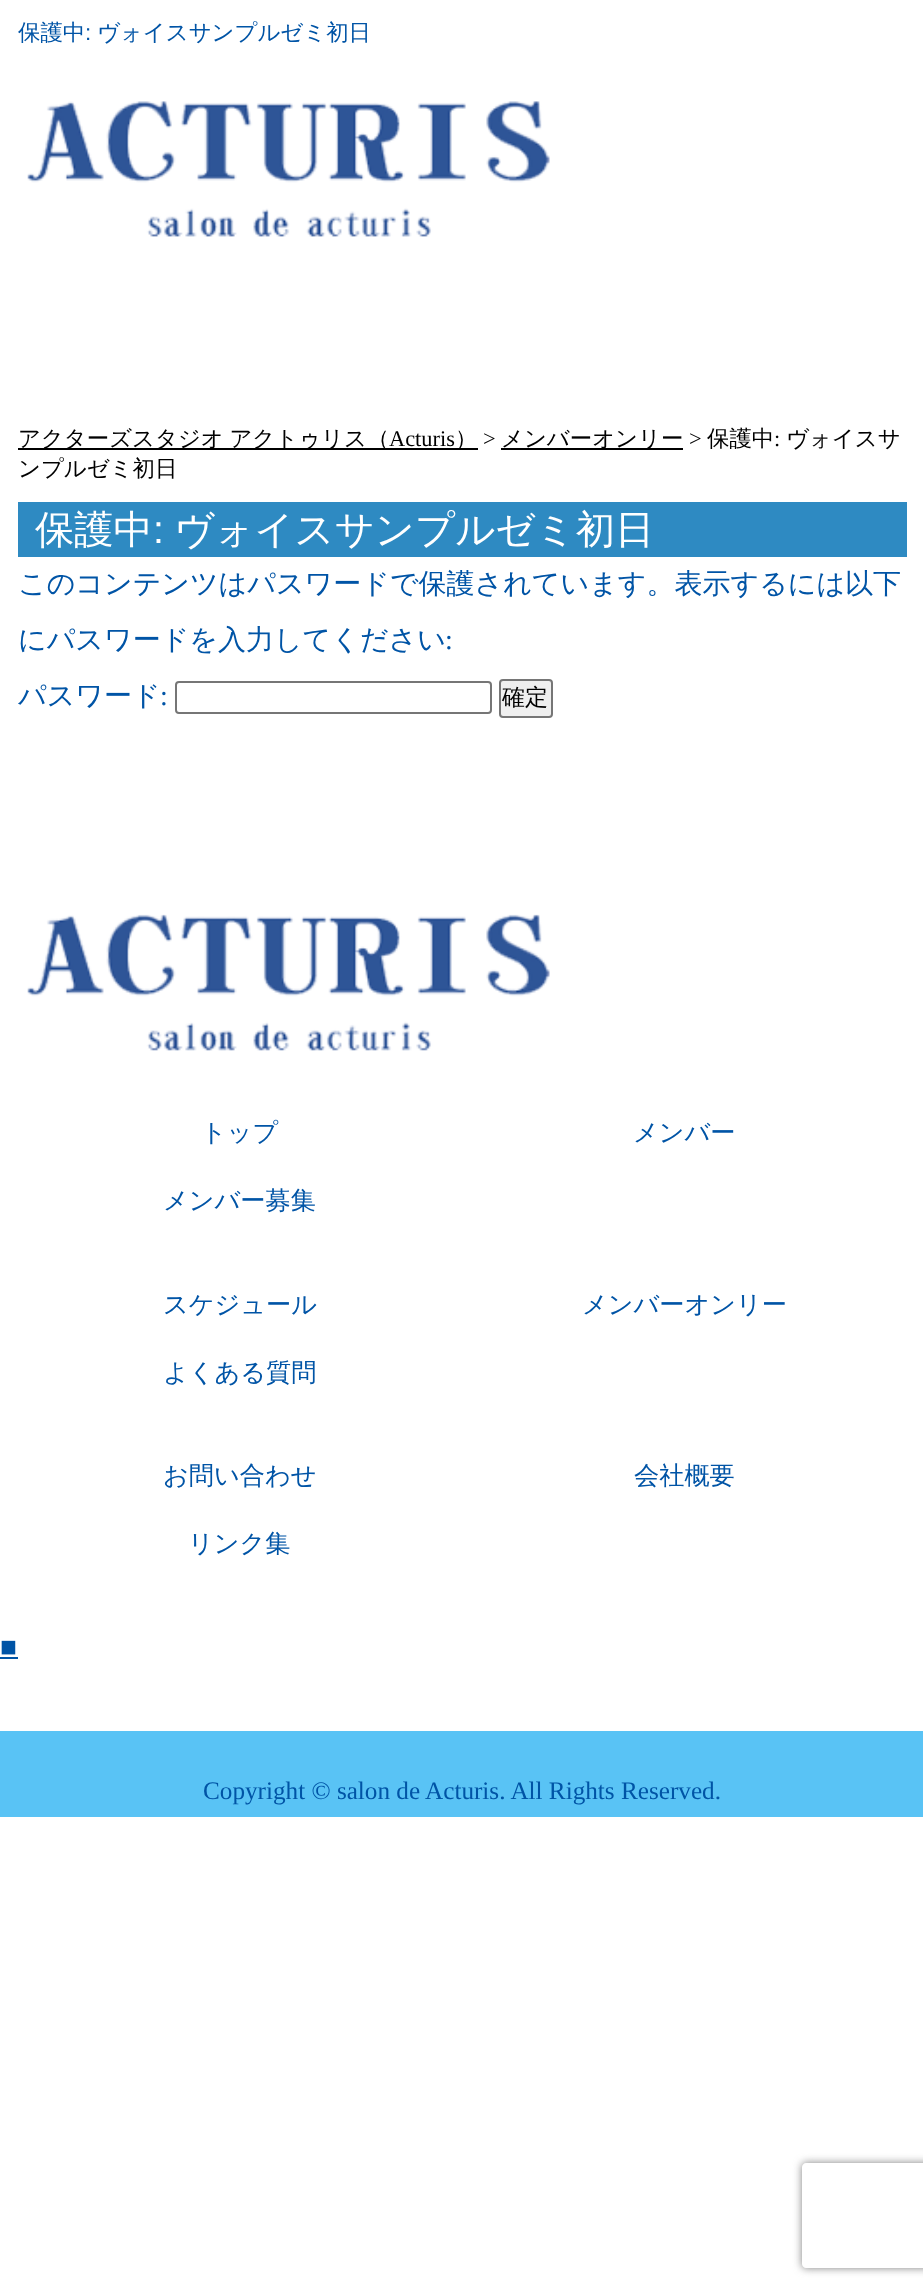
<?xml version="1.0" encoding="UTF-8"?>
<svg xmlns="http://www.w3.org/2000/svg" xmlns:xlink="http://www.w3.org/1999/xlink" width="923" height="2291">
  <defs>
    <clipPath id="clip1"><path d="M 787 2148 h 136 v 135 h -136 z m 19 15 h 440 c 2 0 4 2 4 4 v 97 c 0 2 -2 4 -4 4 h -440 c -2 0 -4 -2 -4 -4 v -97 c 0 -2 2 -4 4 -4 z" clip-rule="evenodd" /></clipPath>
  </defs>
  <rect width="100%" height="100%" fill="#ffffff" />
  <image x="27" y="101" width="523" height="136" xlink:href="image1.png" />
  <rect x="18" y="448" width="460" height="2" fill="#000000" />
  <rect x="501" y="448" width="182" height="2" fill="#000000" />
  <rect x="18" y="502" width="889" height="55" fill="#2e8ac2" />
  <rect x="176" y="682" width="315" height="31" rx="3" fill="none" stroke="#767676" stroke-width="2" />
  <rect x="500" y="680" width="52" height="37" rx="3" fill="#efefef" stroke="#767676" stroke-width="2" />
  <image x="27" y="914" width="523" height="137" xlink:href="image2.png" />
  <rect y="1657" width="18" height="2" fill="#0054a6" />
  <rect y="1731" width="923" height="86" fill="#59c3f5" />
  <g clip-path="url(#clip1)">
    <rect x="802" y="2163" width="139" height="105" rx="4" fill="#808080" filter="blur(4.5px)" />
  </g>
  <text x="18" y="40" style="font-family: WenQuanYi Zen Hei; font-size: 22.4px; font-weight: 500; fill: #0054a6">保護中</text>
  <text x="85" y="40" style="font-family: Liberation Sans; font-size: 22.4px; fill: #0054a6">:</text>
  <text x="97" y="40" style="font-family: WenQuanYi Zen Hei; font-size: 22.4px; font-weight: 500; fill: #0054a6">ヴォイスサンプルゼミ初日</text>
  <text x="18" y="446" word-spacing="-1" style="font-family: WenQuanYi Zen Hei; font-size: 22.4px; font-weight: 500; fill: #000000">アクターズスタジオ アクトゥリス（</text>
  <text x="389" y="446" style="font-family: Liberation Serif; font-size: 22.4px; fill: #000000">Acturis</text>
  <text x="455" y="446" style="font-family: WenQuanYi Zen Hei; font-size: 22.4px; font-weight: 500; fill: #000000">）</text>
  <text x="483" y="446" style="font-family: Liberation Serif; font-size: 22.4px; fill: #000000">&gt;</text>
  <text x="501" y="446" style="font-family: WenQuanYi Zen Hei; font-size: 22.4px; font-weight: 500; fill: #000000">メンバーオンリー</text>
  <text x="689" y="446" style="font-family: Liberation Serif; font-size: 22.4px; fill: #000000">&gt;</text>
  <text x="707" y="446" style="font-family: WenQuanYi Zen Hei; font-size: 22.4px; font-weight: 500; fill: #000000">保護中</text>
  <text x="774" y="446" style="font-family: Liberation Serif; font-size: 22.4px; fill: #000000">:</text>
  <text x="786" y="446" style="font-family: WenQuanYi Zen Hei; font-size: 22.4px; font-weight: 500; fill: #000000">ヴォイスサ</text>
  <text x="18" y="476" style="font-family: WenQuanYi Zen Hei; font-size: 22.4px; font-weight: 500; fill: #000000">ンプルゼミ初日</text>
  <text x="35" y="543" style="font-family: WenQuanYi Zen Hei; font-size: 39.25px; font-weight: 500; fill: #ffffff">保護中</text>
  <text x="153" y="543" style="font-family: Liberation Sans; font-size: 39.25px; fill: #ffffff">:</text>
  <text x="174" y="543" style="font-family: WenQuanYi Zen Hei; font-size: 39.25px; font-weight: 500; fill: #ffffff">ヴォイスサンプルゼミ初日</text>
  <text x="18" y="593" style="font-family: WenQuanYi Zen Hei; font-size: 28px; font-weight: 500; fill: #0054a6">このコンテンツはパスワードで保護されています。表示するには以下</text>
  <text x="18" y="649" style="font-family: WenQuanYi Zen Hei; font-size: 28px; font-weight: 500; fill: #0054a6">にパスワードを入力してください</text>
  <text x="445" y="649" style="font-family: Liberation Serif; font-size: 28px; fill: #0054a6">:</text>
  <text x="18" y="705" style="font-family: WenQuanYi Zen Hei; font-size: 28px; font-weight: 500; fill: #0054a6">パスワード</text>
  <text x="160" y="705" style="font-family: Liberation Serif; font-size: 28px; fill: #0054a6">:</text>
  <text x="502" y="705" style="font-family: WenQuanYi Zen Hei; font-size: 23px; font-weight: 500; fill: #000000">確定</text>
  <text x="201" y="1141" style="font-family: WenQuanYi Zen Hei; font-size: 25.2px; font-weight: 500; fill: #0054a6">トップ</text>
  <text x="633" y="1141" style="font-family: WenQuanYi Zen Hei; font-size: 25.2px; font-weight: 500; fill: #0054a6">メンバー</text>
  <text x="163" y="1209" style="font-family: WenQuanYi Zen Hei; font-size: 25.2px; font-weight: 500; fill: #0054a6">メンバー募集</text>
  <text x="163" y="1313" style="font-family: WenQuanYi Zen Hei; font-size: 25.2px; font-weight: 500; fill: #0054a6">スケジュール</text>
  <text x="582" y="1313" style="font-family: WenQuanYi Zen Hei; font-size: 25.2px; font-weight: 500; fill: #0054a6">メンバーオンリー</text>
  <text x="163" y="1381" style="font-family: WenQuanYi Zen Hei; font-size: 25.2px; font-weight: 500; fill: #0054a6">よくある質問</text>
  <text x="163" y="1484" style="font-family: WenQuanYi Zen Hei; font-size: 25.2px; font-weight: 500; fill: #0054a6">お問い合わせ</text>
  <text x="634" y="1484" style="font-family: WenQuanYi Zen Hei; font-size: 25.2px; font-weight: 500; fill: #0054a6">会社概要</text>
  <text x="188" y="1552" style="font-family: WenQuanYi Zen Hei; font-size: 25.2px; font-weight: 500; fill: #0054a6">リンク集</text>
  <text x="0" y="1656" style="font-family: Liberation Serif; font-size: 28px; fill: #0054a6">■</text>
  <text x="203" y="1799" style="font-family: Liberation Serif; font-size: 25.2px; fill: #0054a6">Copyright © salon de Acturis. All Rights Reserved.</text>
</svg>
